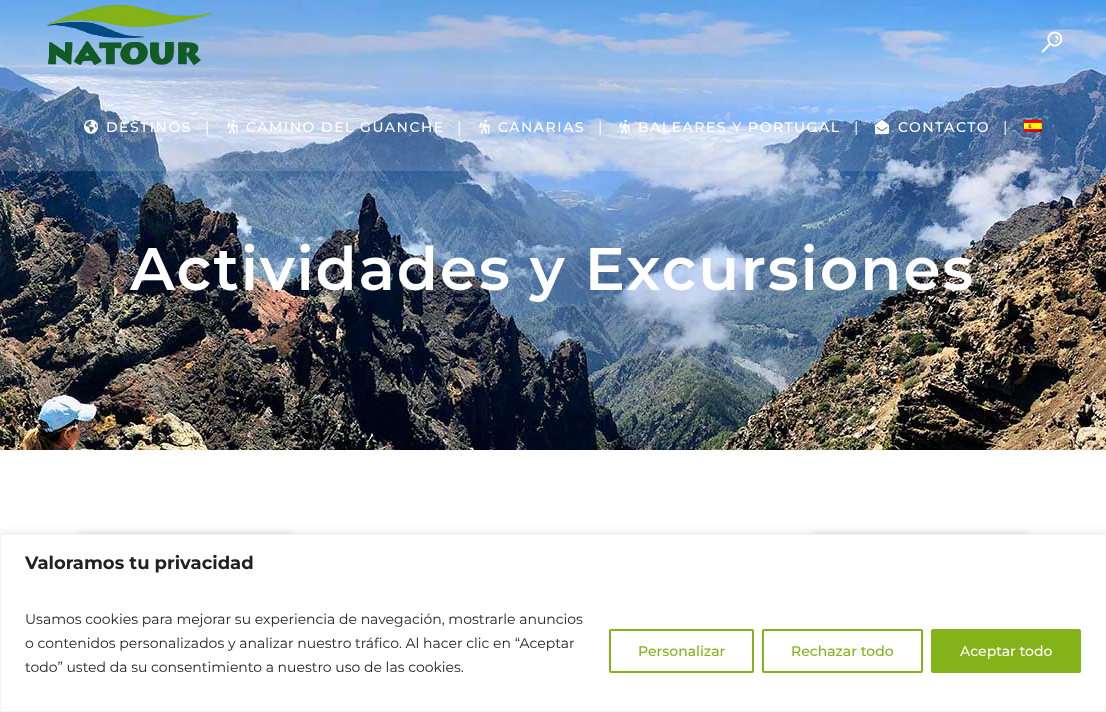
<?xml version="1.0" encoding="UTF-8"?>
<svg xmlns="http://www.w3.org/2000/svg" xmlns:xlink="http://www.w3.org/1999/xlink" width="1106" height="712">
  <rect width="100%" height="100%" fill="#ffffff" />
  <image x="0" y="0" width="1106" height="450" xlink:href="image13.png" />
  <rect width="1106" height="171" fill="#ffffff" fill-opacity="0.15" />
  <image x="46" y="5" width="167" height="60" xlink:href="image1.png" />
  <image x="46" y="5" width="167" height="60" xlink:href="image2.png" />
  <image x="46" y="5" width="167" height="60" xlink:href="image3.png" />
  <image x="46" y="5" width="167" height="60" xlink:href="image4.png" />
  <image x="46" y="5" width="167" height="60" xlink:href="image5.png" />
  <image x="1041" y="31" width="22" height="22" xlink:href="image6.png" />
  <image x="84" y="119" width="14" height="15" xlink:href="image7.png" />
  <image x="227" y="119" width="11" height="15" xlink:href="image8.png" />
  <image x="479" y="119" width="11" height="15" xlink:href="image9.png" />
  <image x="619" y="119" width="11" height="15" xlink:href="image10.png" />
  <image x="875" y="120" width="14" height="14" xlink:href="image11.png" />
  <image x="1024" y="120" width="18" height="12" xlink:href="image12.png" />
  <rect x="78" y="533" width="215" height="148" fill="#000000" fill-opacity="0.1" filter="blur(2.5px)" />
  <rect x="813" y="533" width="215" height="148" fill="#000000" fill-opacity="0.1" filter="blur(2.5px)" />
  <rect y="533" width="1106" height="178" fill="#acabab" fill-opacity="0.3" filter="blur(5px)" />
  <rect x="0.5" y="534.5" width="1105" height="177" fill="#ffffff" stroke="#f4f4f4" />
  <rect x="610" y="630" width="143" height="42" rx="1" fill="none" stroke="#83b319" stroke-width="2" />
  <rect x="763" y="630" width="159" height="42" rx="1" fill="none" stroke="#83b319" stroke-width="2" />
  <rect x="932" y="630" width="148" height="42" rx="1" fill="#83b319" stroke="#83b319" stroke-width="2" />
  <text x="106" y="132" style="font-family: Montserrat; font-size: 14px; font-weight: 500; letter-spacing: 1.5px; fill: #ffffff">DESTINOS</text>
  <text x="205" y="132" style="font-family: Montserrat; font-size: 15px; fill: #ffffff">|</text>
  <text x="246" y="132" style="font-family: Montserrat; font-size: 14px; font-weight: 500; letter-spacing: 1.5px; fill: #ffffff">CAMINO DEL GUANCHE</text>
  <text x="457" y="132" style="font-family: Montserrat; font-size: 15px; fill: #ffffff">|</text>
  <text x="498" y="132" style="font-family: Montserrat; font-size: 14px; font-weight: 500; letter-spacing: 1.5px; fill: #ffffff">CANARIAS</text>
  <text x="598" y="132" style="font-family: Montserrat; font-size: 15px; fill: #ffffff">|</text>
  <text x="638" y="132" style="font-family: Montserrat; font-size: 14px; font-weight: 500; letter-spacing: 1.5px; fill: #ffffff">BALEARES Y PORTUGAL</text>
  <text x="854" y="132" style="font-family: Montserrat; font-size: 15px; fill: #ffffff">|</text>
  <text x="898" y="132" style="font-family: Montserrat; font-size: 14px; font-weight: 500; letter-spacing: 1.5px; fill: #ffffff">CONTACTO</text>
  <text x="1003" y="132" style="font-family: Montserrat; font-size: 15px; fill: #ffffff">|</text>
  <text x="130" y="290" style="font-family: Montserrat; font-size: 60px; font-weight: 600; letter-spacing: 1.8px; fill: #ffffff">Actividades y Excursiones</text>
  <text x="25" y="569" style="font-family: Montserrat; font-size: 18px; font-weight: bold; fill: #212121">Valoramos tu privacidad</text>
  <text x="25" y="624" style="font-family: Montserrat; font-size: 14px; fill: #212121">Usamos cookies para mejorar su experiencia de navegación, mostrarle anuncios</text>
  <text x="25" y="648" style="font-family: Montserrat; font-size: 14px; fill: #212121">o contenidos personalizados y analizar nuestro tráfico. Al hacer clic en “Aceptar</text>
  <text x="25" y="672" style="font-family: Montserrat; font-size: 14px; fill: #212121">todo” usted da su consentimiento a nuestro uso de las cookies.</text>
  <text x="638" y="656" style="font-family: Montserrat; font-size: 14px; font-weight: 500; fill: #83b319">Personalizar</text>
  <text x="791" y="656" style="font-family: Montserrat; font-size: 14px; font-weight: 500; fill: #83b319">Rechazar todo</text>
  <text x="960" y="656" style="font-family: Montserrat; font-size: 14px; font-weight: 500; fill: #ffffff">Aceptar todo</text>
</svg>
